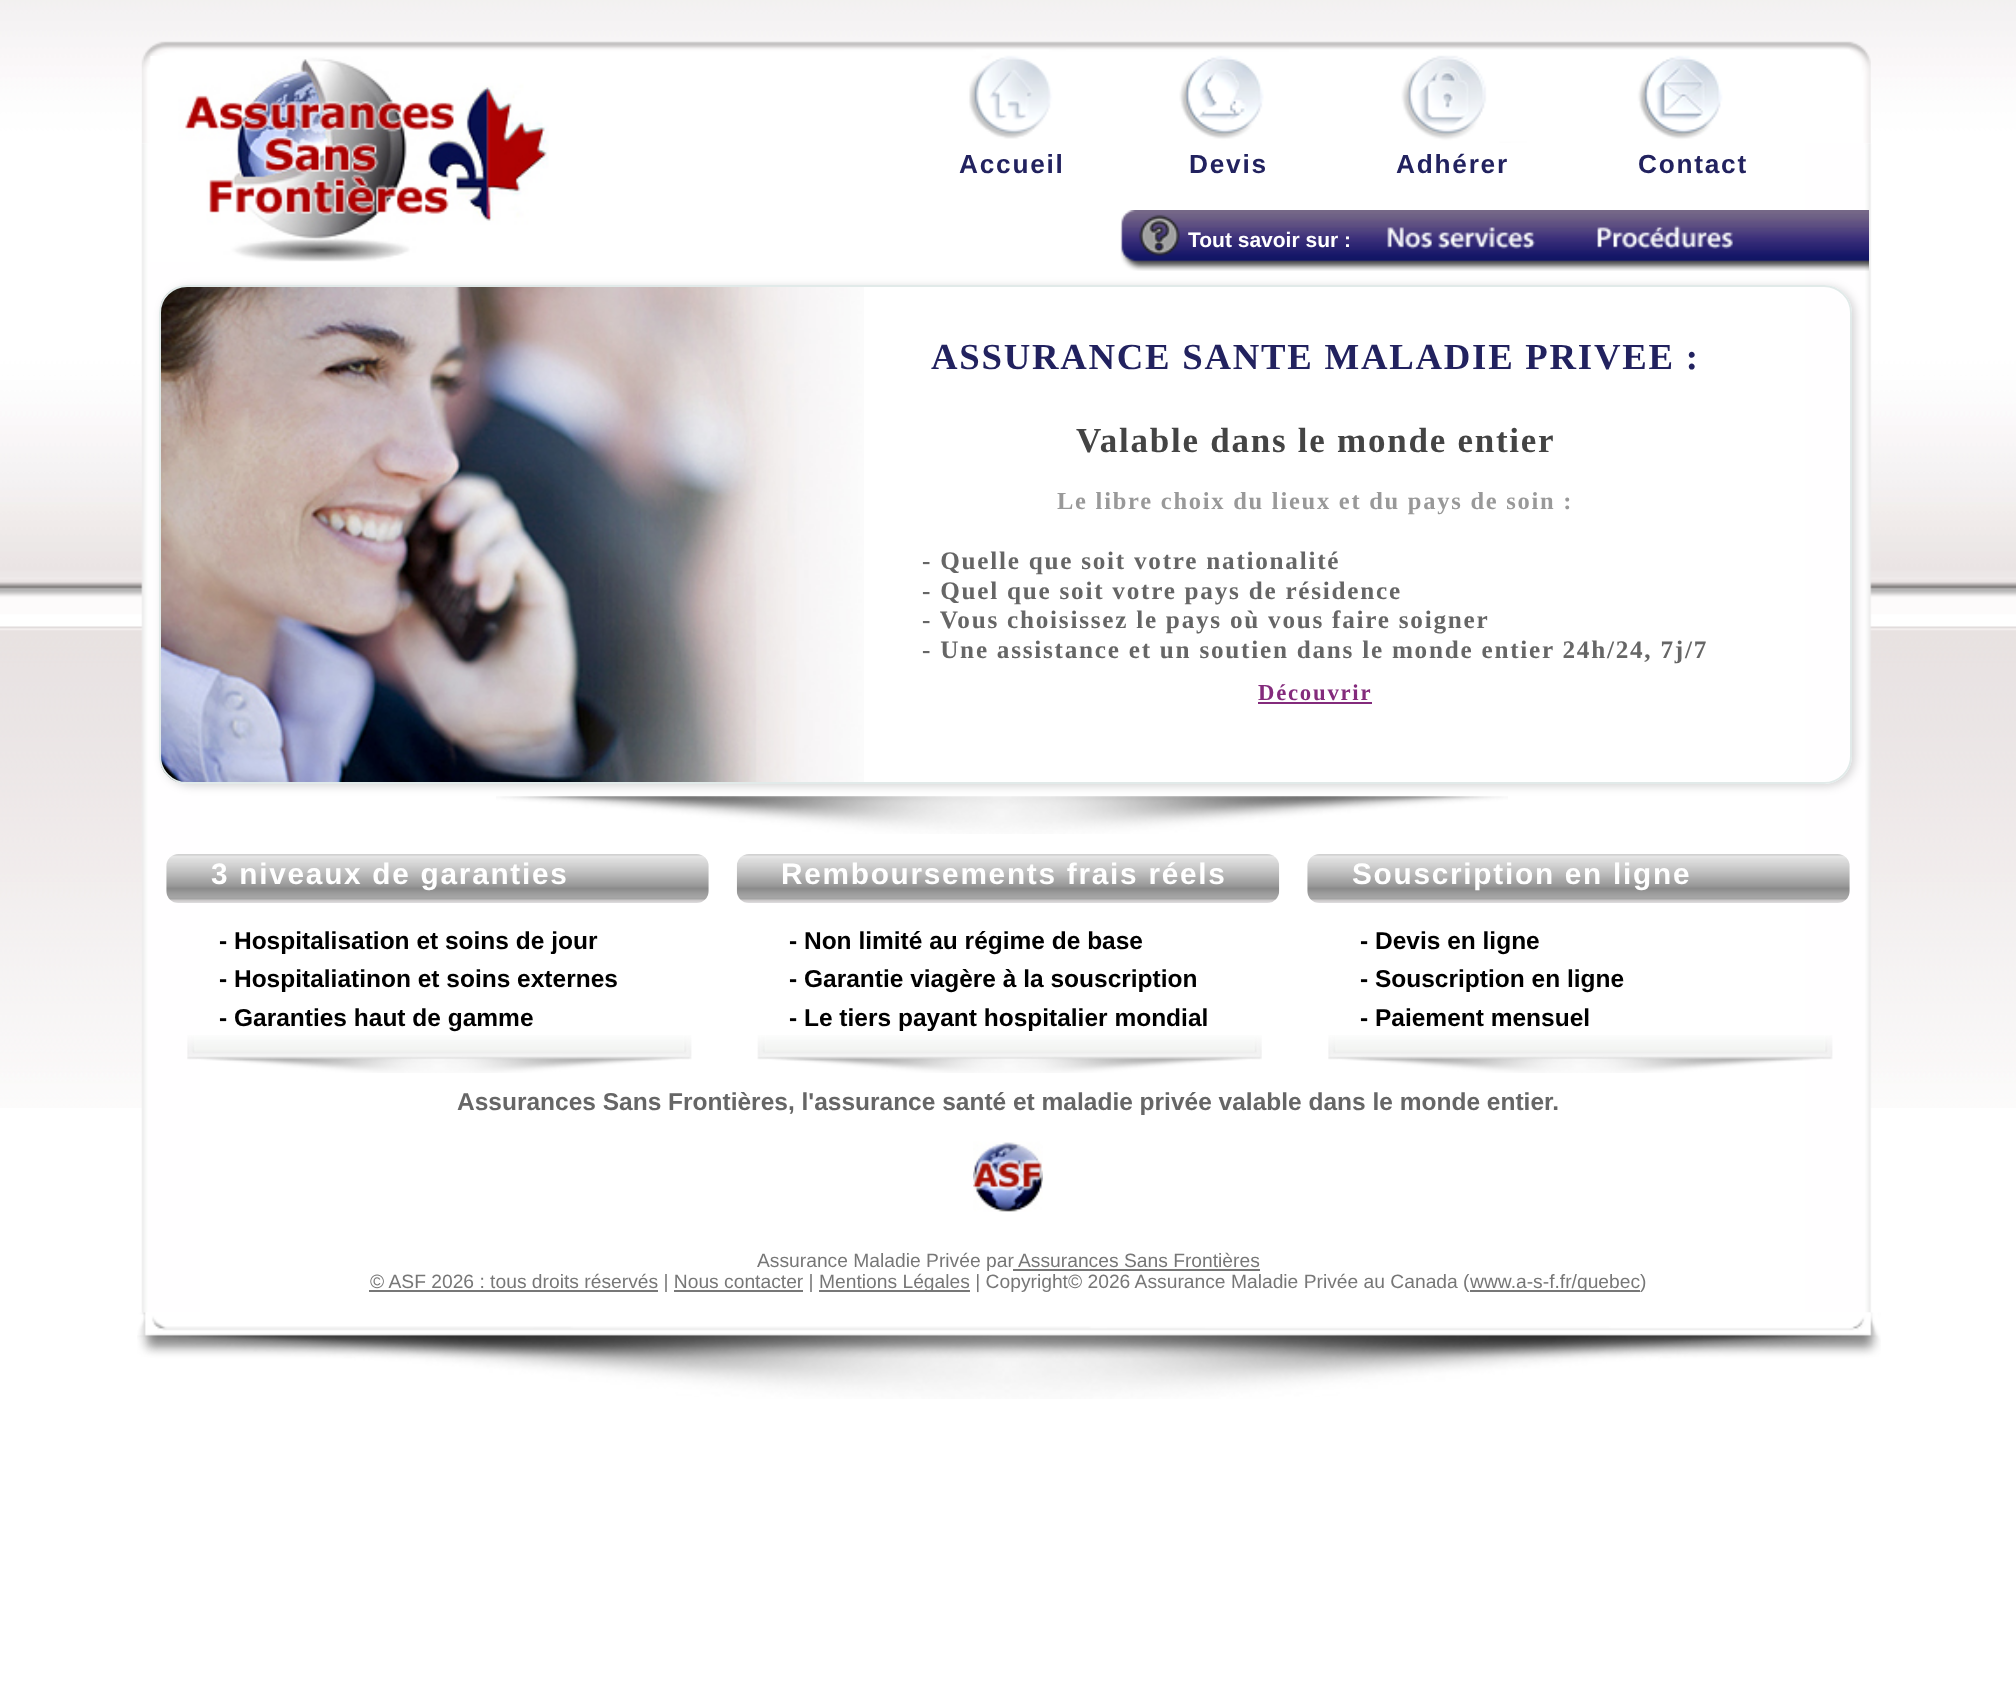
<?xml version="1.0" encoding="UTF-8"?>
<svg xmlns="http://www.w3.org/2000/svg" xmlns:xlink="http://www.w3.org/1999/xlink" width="2016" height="1703">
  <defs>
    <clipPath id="clip1"><path d="M 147 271 h 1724 v 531 h -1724 z m 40 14 h 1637 c 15.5 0 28 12.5 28 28 v 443 c 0 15.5 -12.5 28 -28 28 h -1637 c -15.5 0 -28 -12.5 -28 -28 v -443 c 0 -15.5 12.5 -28 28 -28 z" clip-rule="evenodd" /></clipPath>
  </defs>
  <rect width="100%" height="100%" fill="#ffffff" />
  <image x="0" y="0" width="2016" height="1108" xlink:href="image1.png" />
  <image x="141" y="41" width="1730" height="103" xlink:href="image2.png" />
  <image x="141" y="143" width="1731" height="1170" xlink:href="image4.png" />
  <image x="150" y="56" width="399" height="206" xlink:href="image3.png" />
  <image x="1120" y="210" width="749" height="61" xlink:href="image5.png" />
  <image x="1387" y="227" width="149" height="22" xlink:href="image6.png" />
  <image x="1597" y="225" width="136" height="24" xlink:href="image7.png" />
  <image x="496" y="796" width="1012" height="38" xlink:href="image9.png" />
  <g clip-path="url(#clip1)">
    <rect x="163" y="287" width="1692" height="499" rx="28" fill="#000000" fill-opacity="0.17" filter="blur(5px)" />
  </g>
  <image x="161" y="287" width="703" height="496" xlink:href="image8.png" />
  <rect x="160" y="286" width="1691" height="497" rx="27" fill="none" stroke="#e1eae9" stroke-width="2" />
  <rect x="1258" y="702" width="114" height="2" fill="#842b7c" />
  <image x="166" y="854" width="543" height="49" xlink:href="image10.png" />
  <image x="187" y="1035" width="505" height="38" xlink:href="image11.png" />
  <image x="736" y="854" width="544" height="49" xlink:href="image12.png" />
  <image x="757" y="1035" width="505" height="38" xlink:href="image13.png" />
  <image x="1307" y="854" width="543" height="49" xlink:href="image14.png" />
  <image x="1328" y="1035" width="505" height="38" xlink:href="image15.png" />
  <image x="973" y="1141" width="70" height="71" xlink:href="image16.png" />
  <rect x="1013" y="1269" width="247" height="2" fill="#777777" />
  <rect x="369" y="1290" width="289" height="2" fill="#777777" />
  <rect x="819" y="1290" width="151" height="2" fill="#777777" />
  <rect x="1470" y="1290" width="170" height="2" fill="#777777" />
  <rect x="674" y="1290" width="129" height="2" fill="#777777" />
  <image x="137" y="1312" width="1744" height="87" xlink:href="image17.png" />
  <text x="959" y="173" style="font-family: Liberation Sans; font-size: 26.25px; font-weight: bold; letter-spacing: 1.75px; fill: #22225f">Accueil</text>
  <text x="1189" y="173" style="font-family: Liberation Sans; font-size: 26.25px; font-weight: bold; letter-spacing: 1.75px; fill: #22225f">Devis</text>
  <text x="1396" y="173" style="font-family: Liberation Sans; font-size: 26.25px; font-weight: bold; letter-spacing: 1.75px; fill: #22225f">Adhérer</text>
  <text x="1638" y="173" style="font-family: Liberation Sans; font-size: 26.25px; font-weight: bold; letter-spacing: 1.75px; fill: #22225f">Contact</text>
  <text x="1188" y="247" style="font-family: Liberation Sans; font-size: 21px; font-weight: bold; fill: #ffffff">Tout savoir sur :</text>
  <text x="931" y="369" style="font-family: Liberation Serif; font-size: 36.75px; font-weight: bold; letter-spacing: 1.75px; fill: #22225f">ASSURANCE SANTE MALADIE PRIVEE :</text>
  <text x="1076" y="452" style="font-family: Liberation Serif; font-size: 35px; font-weight: bold; letter-spacing: 1.75px; fill: #444444">Valable dans le monde entier</text>
  <text x="1057" y="509" style="font-family: Liberation Serif; font-size: 24.5px; font-weight: bold; letter-spacing: 1.75px; fill: #999999">Le libre choix du lieux et du pays de soin :</text>
  <text x="922" y="569" style="font-family: Liberation Serif; font-size: 25.2px; font-weight: bold; letter-spacing: 1.75px; fill: #666666">- Quelle que soit votre nationalité</text>
  <text x="922" y="599" style="font-family: Liberation Serif; font-size: 25.2px; font-weight: bold; letter-spacing: 1.75px; fill: #666666">- Quel que soit votre pays de résidence</text>
  <text x="922" y="628" style="font-family: Liberation Serif; font-size: 25.2px; font-weight: bold; letter-spacing: 1.75px; fill: #666666">- Vous choisissez le pays où vous faire soigner</text>
  <text x="922" y="658" style="font-family: Liberation Serif; font-size: 25.2px; font-weight: bold; letter-spacing: 1.75px; fill: #666666">- Une assistance et un soutien dans le monde entier 24h/24, 7j/7</text>
  <text x="1258" y="700" style="font-family: Liberation Serif; font-size: 22.75px; font-weight: bold; letter-spacing: 1.75px; fill: #842b7c">Découvrir</text>
  <text x="211" y="884" style="font-family: Liberation Sans; font-size: 29.75px; font-weight: bold; letter-spacing: 1.75px; fill: #ffffff">3 niveaux de garanties</text>
  <text x="219" y="949" style="font-family: Liberation Sans; font-size: 24.5px; font-weight: bold; fill: #000000">- Hospitalisation et soins de jour</text>
  <text x="219" y="987" style="font-family: Liberation Sans; font-size: 24.5px; font-weight: bold; fill: #000000">- Hospitaliatinon et soins externes</text>
  <text x="219" y="1026" style="font-family: Liberation Sans; font-size: 24.5px; font-weight: bold; fill: #000000">- Garanties haut de gamme</text>
  <text x="781" y="884" style="font-family: Liberation Sans; font-size: 29.75px; font-weight: bold; letter-spacing: 1.75px; fill: #ffffff">Remboursements frais réels</text>
  <text x="789" y="949" style="font-family: Liberation Sans; font-size: 24.5px; font-weight: bold; fill: #000000">- Non limité au régime de base</text>
  <text x="789" y="987" style="font-family: Liberation Sans; font-size: 24.5px; font-weight: bold; fill: #000000">- Garantie viagère à la souscription</text>
  <text x="789" y="1026" style="font-family: Liberation Sans; font-size: 24.5px; font-weight: bold; fill: #000000">- Le tiers payant hospitalier mondial</text>
  <text x="1352" y="884" style="font-family: Liberation Sans; font-size: 29.75px; font-weight: bold; letter-spacing: 1.75px; fill: #ffffff">Souscription en ligne</text>
  <text x="1360" y="949" style="font-family: Liberation Sans; font-size: 24.5px; font-weight: bold; fill: #000000">- Devis en ligne</text>
  <text x="1360" y="987" style="font-family: Liberation Sans; font-size: 24.5px; font-weight: bold; fill: #000000">- Souscription en ligne</text>
  <text x="1360" y="1026" style="font-family: Liberation Sans; font-size: 24.5px; font-weight: bold; fill: #000000">- Paiement mensuel</text>
  <text x="457" y="1110" style="font-family: Liberation Sans; font-size: 24.5px; font-weight: bold; fill: #666666">Assurances Sans Frontières, l'assurance santé et maladie privée valable dans le monde entier.</text>
  <text x="757" y="1267" style="font-family: Liberation Sans; font-size: 19.25px; fill: #777777">Assurance Maladie Privée par</text>
  <text x="1018" y="1267" style="font-family: Liberation Sans; font-size: 19.25px; fill: #777777">Assurances Sans Frontières</text>
  <text x="370" y="1288" style="font-family: Liberation Sans; font-size: 19.25px; fill: #777777">© ASF 2026 : tous droits réservés | Nous contacter |</text>
  <text x="819" y="1288" style="font-family: Liberation Sans; font-size: 19.25px; fill: #777777">Mentions Légales | Copyright© 2026 Assurance Maladie Privée au Canada (</text>
  <text x="1470" y="1288" style="font-family: Liberation Sans; font-size: 19.25px; fill: #777777">www.a-s-f.fr/quebec)</text>
</svg>
